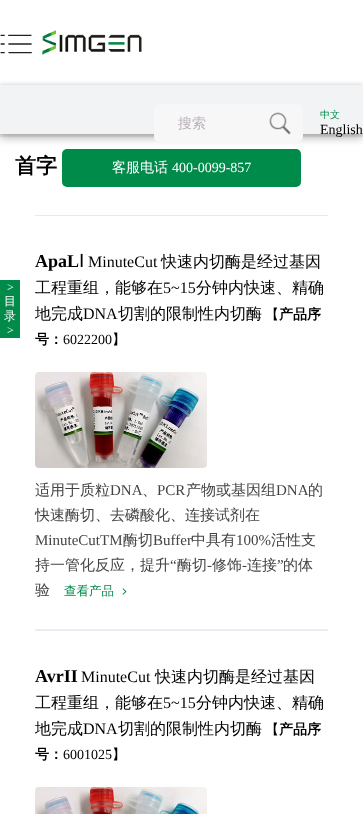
<?xml version="1.0" encoding="UTF-8"?>
<svg xmlns="http://www.w3.org/2000/svg" xmlns:xlink="http://www.w3.org/1999/xlink" width="363" height="814">
  <rect width="100%" height="100%" fill="#f2f2f2" />
  <rect width="363" height="85" fill="#ffffff" />
  <image x="0" y="34" width="32" height="20" xlink:href="image1.png" />
  <image x="42" y="30" width="100" height="25" xlink:href="image2.png" />
  <rect y="137" width="363" height="677" fill="#ffffff" />
  <rect y="89" width="363" height="49" fill="#000000" fill-opacity="0.28" filter="blur(4px)" />
  <rect y="85" width="363" height="49" fill="#000000" fill-opacity="0.14" filter="blur(2px)" />
  <rect y="85" width="363" height="49" fill="#f1f3f4" />
  <rect x="154" y="104" width="149" height="38" rx="5" fill="#f7f7f7" />
  <image x="269" y="112" width="22" height="23" xlink:href="image3.png" />
  <rect x="62" y="149" width="239" height="38" rx="5" fill="#008b4a" />
  <rect y="280" width="20" height="58" fill="#008b4a" />
  <rect x="35" y="215" width="293" height="1" fill="#e7eaf1" />
  <rect x="35" y="629" width="293" height="1" fill="#eeeeee" />
  <image x="35" y="372" width="172" height="96" xlink:href="image4.png" />
  <image x="122" y="588" width="5" height="7" xlink:href="image5.png" />
  <rect x="35" y="630" width="293" height="1" fill="#e7eaf1" />
  <image x="35" y="787" width="172" height="27" xlink:href="image6.png" />
  <text x="178" y="128" style="font-family: WenQuanYi Zen Hei; font-size: 14px; font-weight: 500; fill: #bab1ba">搜索</text>
  <text x="320" y="118" style="font-family: WenQuanYi Zen Hei; font-size: 10px; font-weight: 500; fill: #008b4a">中文</text>
  <text x="320" y="134" style="font-family: Liberation Serif; font-size: 14px; fill: #000000">English</text>
  <text x="112" y="172" style="font-family: WenQuanYi Zen Hei; font-size: 14px; font-weight: 500; fill: #ffffff">客服电话</text>
  <text x="172" y="172" style="font-family: Liberation Serif; font-size: 14px; fill: #ffffff">400-0099-857</text>
  <text x="7" y="291" style="font-family: Liberation Serif; font-size: 12px; fill: #ffffff">&gt;</text>
  <text x="4" y="305" style="font-family: WenQuanYi Zen Hei; font-size: 12px; font-weight: 500; fill: #ffffff">目</text>
  <text x="4" y="320" style="font-family: WenQuanYi Zen Hei; font-size: 12px; font-weight: 500; fill: #ffffff">录</text>
  <text x="7" y="334" style="font-family: Liberation Serif; font-size: 12px; fill: #ffffff">&gt;</text>
  <text x="15" y="173" style="font-family: WenQuanYi Zen Hei; font-size: 21px; font-weight: bold; fill: #000000">首字</text>
  <text x="35" y="267" style="font-family: Liberation Serif; font-size: 18px; font-weight: bold; fill: #000000">ApaL</text>
  <text x="79" y="267" style="font-family: DejaVu Sans; font-size: 18px; fill: #000000">Ⅰ</text>
  <text x="88" y="267" style="font-family: Liberation Serif; font-size: 16px; fill: #000000">MinuteCut</text>
  <text x="161" y="267" style="font-family: WenQuanYi Zen Hei; font-size: 16px; font-weight: 500; fill: #000000">快速内切酶是经过基因</text>
  <text x="35" y="293" style="font-family: WenQuanYi Zen Hei; font-size: 16px; font-weight: 500; fill: #000000">工程重组，能够在</text>
  <text x="163" y="293" style="font-family: Liberation Serif; font-size: 16px; fill: #000000">5~15</text>
  <text x="196" y="293" style="font-family: WenQuanYi Zen Hei; font-size: 16px; font-weight: 500; fill: #000000">分钟内快速、精确</text>
  <text x="35" y="319" style="font-family: WenQuanYi Zen Hei; font-size: 16px; font-weight: 500; fill: #000000">地完成</text>
  <text x="83" y="319" style="font-family: Liberation Serif; font-size: 16px; fill: #000000">DNA</text>
  <text x="118" y="319" style="font-family: WenQuanYi Zen Hei; font-size: 16px; font-weight: 500; fill: #000000">切割的限制性内切酶</text>
  <text x="265" y="319" style="font-family: WenQuanYi Zen Hei; font-size: 14px; font-weight: 500; fill: #000000">【</text>
  <text x="279" y="319" style="font-family: WenQuanYi Zen Hei; font-size: 14px; font-weight: bold; fill: #000000">产品序</text>
  <text x="35" y="344" style="font-family: WenQuanYi Zen Hei; font-size: 14px; font-weight: bold; fill: #000000">号：</text>
  <text x="63" y="344" style="font-family: Liberation Serif; font-size: 14px; fill: #000000">6022200</text>
  <text x="112" y="344" style="font-family: WenQuanYi Zen Hei; font-size: 14px; font-weight: 500; fill: #000000">】</text>
  <text x="35" y="495" style="font-family: WenQuanYi Zen Hei; font-size: 15px; font-weight: 500; fill: #444444">适用于质粒</text>
  <text x="110" y="495" style="font-family: Liberation Serif; font-size: 15px; fill: #444444">DNA</text>
  <text x="142" y="495" style="font-family: WenQuanYi Zen Hei; font-size: 15px; font-weight: 500; fill: #444444">、</text>
  <text x="157" y="495" style="font-family: Liberation Serif; font-size: 15px; fill: #444444">PCR</text>
  <text x="186" y="495" style="font-family: WenQuanYi Zen Hei; font-size: 15px; font-weight: 500; fill: #444444">产物或基因组</text>
  <text x="276" y="495" style="font-family: Liberation Serif; font-size: 15px; fill: #444444">DNA</text>
  <text x="308" y="495" style="font-family: WenQuanYi Zen Hei; font-size: 15px; font-weight: 500; fill: #444444">的</text>
  <text x="35" y="520" style="font-family: WenQuanYi Zen Hei; font-size: 15px; font-weight: 500; fill: #444444">快速酶切、去磷酸化、连接试剂在</text>
  <text x="35" y="545" style="font-family: Liberation Serif; font-size: 15px; fill: #444444">MinuteCutTM</text>
  <text x="123" y="545" style="font-family: WenQuanYi Zen Hei; font-size: 15px; font-weight: 500; fill: #444444">酶切</text>
  <text x="153" y="545" style="font-family: Liberation Serif; font-size: 15px; fill: #444444">Buffer</text>
  <text x="191" y="545" style="font-family: WenQuanYi Zen Hei; font-size: 15px; font-weight: 500; fill: #444444">中具有</text>
  <text x="236" y="545" style="font-family: Liberation Serif; font-size: 15px; fill: #444444">100%</text>
  <text x="271" y="545" style="font-family: WenQuanYi Zen Hei; font-size: 15px; font-weight: 500; fill: #444444">活性支</text>
  <text x="35" y="570" style="font-family: WenQuanYi Zen Hei; font-size: 15px; font-weight: 500; fill: #444444">持一管化反应，提升</text>
  <text x="170" y="570" style="font-family: Liberation Serif; font-size: 15px; fill: #444444">“</text>
  <text x="177" y="570" style="font-family: WenQuanYi Zen Hei; font-size: 15px; font-weight: 500; fill: #444444">酶切</text>
  <text x="247" y="570" style="font-family: WenQuanYi Zen Hei; font-size: 15px; font-weight: 500; fill: #444444">连接</text>
  <text x="277" y="570" style="font-family: Liberation Serif; font-size: 15px; fill: #444444">”</text>
  <text x="283" y="570" style="font-family: WenQuanYi Zen Hei; font-size: 15px; font-weight: 500; fill: #444444">的体</text>
  <text x="207" y="570" style="font-family: Liberation Serif; font-size: 15px; fill: #444444">-</text>
  <text x="212" y="570" style="font-family: WenQuanYi Zen Hei; font-size: 15px; font-weight: 500; fill: #444444">修饰</text>
  <text x="242" y="570" style="font-family: Liberation Serif; font-size: 15px; fill: #444444">-</text>
  <text x="35" y="595" style="font-family: WenQuanYi Zen Hei; font-size: 15px; font-weight: 500; fill: #444444">验</text>
  <text x="64" y="595" style="font-family: WenQuanYi Zen Hei; font-size: 12.5px; font-weight: 500; fill: #008b4a">查看产品</text>
  <text x="35" y="682" style="font-family: Liberation Serif; font-size: 18px; font-weight: bold; fill: #000000">AvrII</text>
  <text x="81" y="682" style="font-family: Liberation Serif; font-size: 16px; fill: #000000">MinuteCut</text>
  <text x="155" y="682" style="font-family: WenQuanYi Zen Hei; font-size: 16px; font-weight: 500; fill: #000000">快速内切酶是经过基因</text>
  <text x="35" y="708" style="font-family: WenQuanYi Zen Hei; font-size: 16px; font-weight: 500; fill: #000000">工程重组，能够在</text>
  <text x="163" y="708" style="font-family: Liberation Serif; font-size: 16px; fill: #000000">5~15</text>
  <text x="196" y="708" style="font-family: WenQuanYi Zen Hei; font-size: 16px; font-weight: 500; fill: #000000">分钟内快速、精确</text>
  <text x="35" y="734" style="font-family: WenQuanYi Zen Hei; font-size: 16px; font-weight: 500; fill: #000000">地完成</text>
  <text x="83" y="734" style="font-family: Liberation Serif; font-size: 16px; fill: #000000">DNA</text>
  <text x="118" y="734" style="font-family: WenQuanYi Zen Hei; font-size: 16px; font-weight: 500; fill: #000000">切割的限制性内切酶</text>
  <text x="265" y="734" style="font-family: WenQuanYi Zen Hei; font-size: 14px; font-weight: 500; fill: #000000">【</text>
  <text x="279" y="734" style="font-family: WenQuanYi Zen Hei; font-size: 14px; font-weight: bold; fill: #000000">产品序</text>
  <text x="35" y="759" style="font-family: WenQuanYi Zen Hei; font-size: 14px; font-weight: bold; fill: #000000">号：</text>
  <text x="63" y="759" style="font-family: Liberation Serif; font-size: 14px; fill: #000000">6001025</text>
  <text x="112" y="759" style="font-family: WenQuanYi Zen Hei; font-size: 14px; font-weight: 500; fill: #000000">】</text>
</svg>
